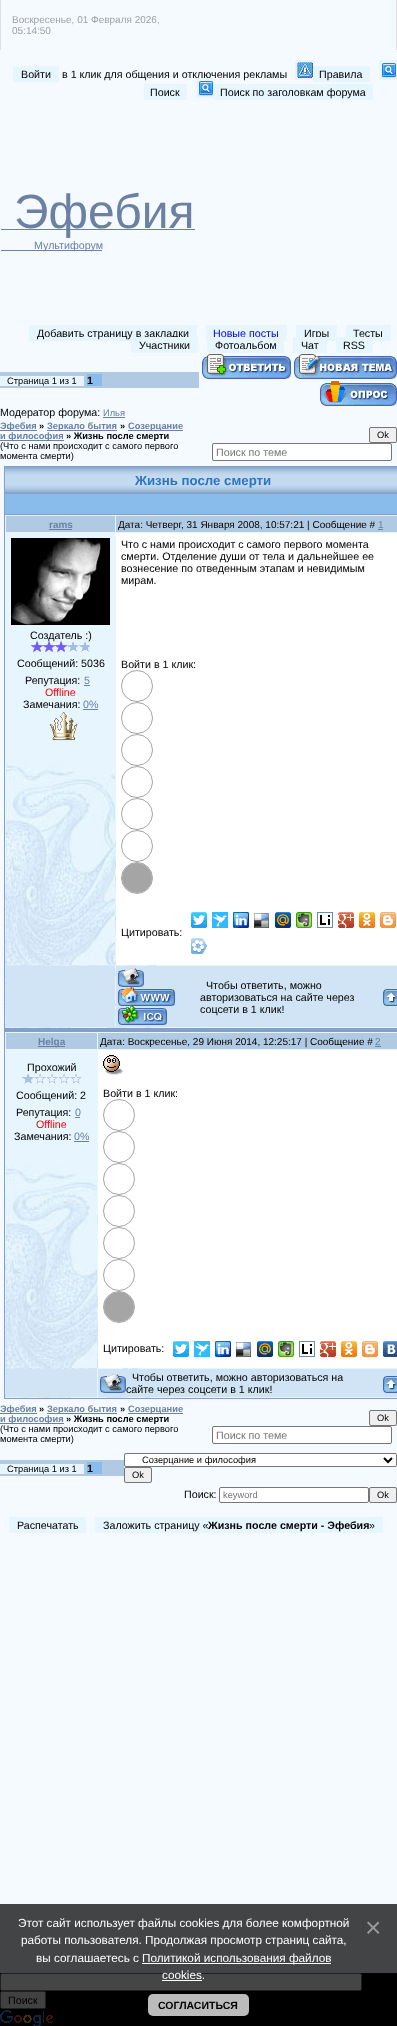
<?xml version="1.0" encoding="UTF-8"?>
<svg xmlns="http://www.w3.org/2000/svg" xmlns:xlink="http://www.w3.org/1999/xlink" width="397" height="2026">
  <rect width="100%" height="100%" fill="#f4faff" />
  <rect y="1904" width="397" height="69" fill="#424445" />
  <rect x="396" width="1" height="50" fill="#dedede" />
  <rect width="1" height="50" fill="#dedede" />
  <rect x="13" y="66" width="46" height="16" fill="#e7f5fe" />
  <rect x="295" y="60" width="18" height="20" fill="#e7f5fe" />
  <image x="297" y="62" width="16" height="16" xlink:href="image1.png" />
  <rect x="313" y="66" width="57" height="16" fill="#e7f5fe" />
  <rect x="379" y="60" width="18" height="20" fill="#e7f5fe" />
  <image x="381" y="63" width="16" height="15" xlink:href="image2.png" />
  <rect x="144" y="84" width="43" height="16" fill="#e7f5fe" />
  <rect x="214" y="84" width="159" height="16" fill="#e7f5fe" />
  <rect x="1" y="229" width="194" height="1" fill="#6b80a3" />
  <rect x="1" y="250" width="101" height="1" fill="#6b80a3" />
  <rect x="29" y="325" width="168" height="16" fill="#e7f5fe" />
  <rect x="206" y="325" width="7" height="16" fill="#e7f5fe" />
  <rect x="213" y="325" width="66" height="12" fill="#e7f5fe" />
  <rect x="279" y="325" width="8" height="16" fill="#e7f5fe" />
  <rect x="296" y="325" width="41" height="16" fill="#e7f5fe" />
  <rect x="346" y="325" width="45" height="16" fill="#e7f5fe" />
  <rect y="372" width="199" height="16" fill="#b0cae4" />
  <rect y="376" width="84" height="10" fill="#e8f5fe" />
  <rect x="87" y="374" width="15" height="12" fill="#8abceb" />
  <image x="202" y="354" width="89" height="25" xlink:href="image3.png" />
  <image x="294" y="354" width="103" height="25" xlink:href="image4.png" />
  <image x="320" y="381" width="77" height="25" xlink:href="image5.png" />
  <rect x="103" y="417" width="22" height="1" fill="#6b80a3" />
  <rect y="430" width="37" height="1" fill="#6b80a3" />
  <rect x="47" y="430" width="70" height="1" fill="#6b80a3" />
  <rect x="128" y="430" width="55" height="1" fill="#6b80a3" />
  <rect y="440" width="64" height="1" fill="#6b80a3" />
  <rect x="369.5" y="427.5" width="27" height="15" rx="1.5" fill="#efefef" stroke="#767676" />
  <rect x="212.5" y="443.5" width="179" height="17" rx="1.5" fill="#ffffff" stroke="#767676" />
  <rect x="4" y="466" width="393" height="933" fill="#849fca" />
  <image x="5" y="467" width="392" height="26" xlink:href="image6.png" />
  <rect x="5" y="494" width="392" height="20" fill="#8abceb" />
  <rect x="5" y="515" width="392" height="513" fill="#e7f5ff" />
  <image x="5" y="785" width="198" height="243" xlink:href="image7.png" />
  <rect x="6" y="516" width="109" height="16" fill="#b0cae4" />
  <rect x="49" y="529" width="23" height="1" fill="#6b80a3" />
  <rect x="116" y="516" width="281" height="16" fill="#b0cae4" />
  <rect x="378" y="529" width="5" height="1" fill="#6b80a3" />
  <image x="6" y="762" width="109" height="203" xlink:href="image8.png" />
  <image x="11" y="538" width="99" height="87" xlink:href="image9.png" />
  <rect x="84" y="685" width="6" height="1" fill="#6b80a3" />
  <rect x="83" y="709" width="15" height="1" fill="#6b80a3" />
  <image x="49" y="712" width="29" height="29" xlink:href="image11.png" />
  <rect x="116" y="533" width="281" height="432" fill="#ffffff" />
  <circle cx="137" cy="686" r="15.5" fill="none" stroke="#a5a5a5" />
  <circle cx="137" cy="718" r="15.5" fill="none" stroke="#a5a5a5" />
  <circle cx="137" cy="750" r="15.5" fill="none" stroke="#a5a5a5" />
  <circle cx="137" cy="782" r="15.5" fill="none" stroke="#a5a5a5" />
  <circle cx="137" cy="814" r="15.5" fill="none" stroke="#a5a5a5" />
  <circle cx="137" cy="846" r="15.5" fill="none" stroke="#a5a5a5" />
  <circle cx="137" cy="878" r="15.5" fill="none" stroke="#a5a5a5" />
  <circle cx="137" cy="878" r="15" fill="#a5a5a5" />
  <image x="191" y="912" width="16" height="16" xlink:href="image12.png" />
  <image x="212" y="912" width="16" height="16" xlink:href="image13.png" />
  <image x="233" y="912" width="16" height="16" xlink:href="image14.png" />
  <image x="254" y="913" width="15" height="15" xlink:href="image15.png" />
  <image x="275" y="912" width="16" height="16" xlink:href="image16.png" />
  <image x="296" y="912" width="16" height="16" xlink:href="image17.png" />
  <image x="317" y="912" width="16" height="16" xlink:href="image18.png" />
  <image x="338" y="912" width="16" height="16" xlink:href="image19.png" />
  <image x="359" y="912" width="16" height="16" xlink:href="image20.png" />
  <image x="380" y="912" width="16" height="16" xlink:href="image21.png" />
  <image x="191" y="938" width="16" height="16" xlink:href="image22.png" />
  <rect x="6" y="966" width="109" height="61" fill="#d1e4f5" />
  <rect x="116" y="966" width="281" height="61" fill="#d1e4f5" />
  <image x="118" y="968" width="26" height="19" xlink:href="image23.png" />
  <image x="118" y="987" width="57" height="19" xlink:href="image24.png" />
  <image x="118" y="1006" width="49" height="19" xlink:href="image25.png" />
  <image x="383" y="989" width="14" height="17" xlink:href="image26.png" />
  <rect x="5" y="1032" width="392" height="366" fill="#e7f5ff" />
  <image x="5" y="1155" width="198" height="243" xlink:href="image7.png" />
  <rect x="6" y="1033" width="91" height="16" fill="#b0cae4" />
  <rect x="38" y="1046" width="27" height="1" fill="#6b80a3" />
  <rect x="98" y="1033" width="299" height="16" fill="#b0cae4" />
  <rect x="375" y="1046" width="6" height="1" fill="#6b80a3" />
  <image x="6" y="1165" width="91" height="203" xlink:href="image27.png" />
  <rect x="75" y="1117" width="5" height="1" fill="#6b80a3" />
  <rect x="74" y="1141" width="15" height="1" fill="#6b80a3" />
  <rect x="98" y="1050" width="299" height="318" fill="#ffffff" />
  <image x="103" y="1055" width="20" height="20" xlink:href="image29.png" />
  <circle cx="119" cy="1115" r="15.5" fill="none" stroke="#a5a5a5" />
  <circle cx="119" cy="1147" r="15.5" fill="none" stroke="#a5a5a5" />
  <circle cx="119" cy="1179" r="15.5" fill="none" stroke="#a5a5a5" />
  <circle cx="119" cy="1211" r="15.5" fill="none" stroke="#a5a5a5" />
  <circle cx="119" cy="1243" r="15.5" fill="none" stroke="#a5a5a5" />
  <circle cx="119" cy="1275" r="15.5" fill="none" stroke="#a5a5a5" />
  <circle cx="119" cy="1307" r="15.5" fill="none" stroke="#a5a5a5" />
  <circle cx="119" cy="1307" r="15" fill="#a5a5a5" />
  <image x="173" y="1341" width="16" height="16" xlink:href="image12.png" />
  <image x="194" y="1341" width="16" height="16" xlink:href="image13.png" />
  <image x="215" y="1341" width="16" height="16" xlink:href="image14.png" />
  <image x="236" y="1342" width="15" height="15" xlink:href="image15.png" />
  <image x="257" y="1341" width="16" height="16" xlink:href="image16.png" />
  <image x="278" y="1341" width="16" height="16" xlink:href="image17.png" />
  <image x="299" y="1341" width="16" height="16" xlink:href="image18.png" />
  <image x="320" y="1341" width="16" height="16" xlink:href="image19.png" />
  <image x="341" y="1341" width="16" height="16" xlink:href="image20.png" />
  <image x="362" y="1341" width="16" height="16" xlink:href="image21.png" />
  <image x="383" y="1341" width="14" height="16" xlink:href="image30.png" />
  <rect x="6" y="1369" width="91" height="28" fill="#d1e4f5" />
  <rect x="98" y="1369" width="299" height="28" fill="#d1e4f5" />
  <image x="100" y="1374" width="26" height="19" xlink:href="image23.png" />
  <image x="383" y="1376" width="14" height="17" xlink:href="image26.png" />
  <rect y="1413" width="37" height="1" fill="#6b80a3" />
  <rect x="47" y="1413" width="70" height="1" fill="#6b80a3" />
  <rect x="128" y="1413" width="55" height="1" fill="#6b80a3" />
  <rect y="1423" width="64" height="1" fill="#6b80a3" />
  <rect x="369.5" y="1410.5" width="27" height="15" rx="1.5" fill="#efefef" stroke="#767676" />
  <rect x="212.5" y="1426.5" width="179" height="17" rx="1.5" fill="#ffffff" stroke="#767676" />
  <rect y="1460" width="124" height="16" fill="#b0cae4" />
  <rect y="1464" width="84" height="10" fill="#e8f5fe" />
  <rect x="87" y="1462" width="15" height="12" fill="#8abceb" />
  <rect x="124.5" y="1453.5" width="272" height="13" rx="1.5" fill="#ffffff" stroke="#767676" />
  <path d="M 384 1458 l 4 4 l 4 -4" fill="none" stroke="#000000" stroke-width="2" />
  <rect x="124.5" y="1467.5" width="27" height="15" rx="1.5" fill="#efefef" stroke="#767676" />
  <rect x="219.5" y="1487.5" width="149" height="15" rx="1.5" fill="#ffffff" stroke="#767676" />
  <rect x="369.5" y="1487.5" width="27" height="15" rx="1.5" fill="#efefef" stroke="#767676" />
  <rect x="9" y="1517" width="77" height="16" fill="#e7f5fe" />
  <rect x="95" y="1517" width="288" height="16" fill="#e7f5fe" />
  <rect x="142" y="1963" width="189" height="1" fill="#ffffff" />
  <rect y="1973" width="397" height="53" fill="#000000" />
  <rect x="0.5" y="1973.5" width="361" height="17" rx="1.5" fill="#454545" stroke="#202020" />
  <rect x="162" y="1980" width="40" height="1" fill="#ffffff" />
  <rect x="148" y="1994" width="101" height="22" rx="5" fill="#bbbbbb" />
  <rect x="0.5" y="1991.5" width="45" height="17" rx="1.5" fill="#414141" stroke="#202020" />
  <image x="0" y="2010" width="53" height="16" xlink:href="image31.png" />
  <text x="12" y="23" style="font-family: Liberation Sans; font-size: 10px; fill: #a1a1a1">Воскресенье, 01 Февраля 2026,</text>
  <text x="12" y="34" style="font-family: Liberation Sans; font-size: 10px; fill: #a1a1a1">05:14:50</text>
  <text x="21" y="78" style="font-family: Liberation Sans; font-size: 10.7px; fill: #000000">Войти</text>
  <text x="62" y="78" style="font-family: Liberation Sans; font-size: 10.7px; fill: #000000">в 1 клик для общения и отключения рекламы</text>
  <text x="319" y="78" style="font-family: Liberation Sans; font-size: 10.7px; fill: #000000">Правила</text>
  <text x="150" y="96" style="font-family: Liberation Sans; font-size: 10.7px; fill: #000000">Поиск</text>
  <text x="220" y="96" style="font-family: Liberation Sans; font-size: 10.7px; fill: #000000">Поиск по заголовкам форума</text>
  <rect x="196" y="78" width="18" height="20" fill="#e7f5fe" />
  <image x="198" y="81" width="16" height="15" xlink:href="image2.png" />
  <text x="14" y="228" style="font-family: Liberation Sans; font-size: 48px; fill: #6b80a3">Эфебия</text>
  <text x="34" y="249" style="font-family: Liberation Sans; font-size: 10.7px; fill: #6b80a3">Мультифорум</text>
  <text x="37" y="337" style="font-family: Liberation Sans; font-size: 10.7px; fill: #000000">Добавить страницу в закладки</text>
  <text x="213" y="337" style="font-family: Liberation Sans; font-size: 10.7px; fill: #0000ff">Новые посты</text>
  <text x="304" y="337" style="font-family: Liberation Sans; font-size: 10.7px; fill: #000000">Игры</text>
  <text x="353" y="337" style="font-family: Liberation Sans; font-size: 10.7px; fill: #000000">Тесты</text>
  <rect x="131" y="337" width="67" height="16" fill="#e7f5fe" />
  <text x="139" y="349" style="font-family: Liberation Sans; font-size: 10.7px; fill: #000000">Участники</text>
  <rect x="207" y="337" width="77" height="16" fill="#e7f5fe" />
  <text x="215" y="349" style="font-family: Liberation Sans; font-size: 10.7px; fill: #000000">Фотоальбом</text>
  <rect x="293" y="337" width="34" height="16" fill="#e7f5fe" />
  <text x="301" y="349" style="font-family: Liberation Sans; font-size: 10.7px; fill: #000000">Чат</text>
  <rect x="336" y="337" width="37" height="16" fill="#e7f5fe" />
  <text x="343" y="349" style="font-family: Liberation Sans; font-size: 10.7px; fill: #000000">RSS</text>
  <text x="7" y="384" style="font-family: Liberation Sans; font-size: 9.3px; fill: #000000">Страница 1 из 1</text>
  <text x="87" y="384" style="font-family: Liberation Sans; font-size: 10.7px; font-weight: bold; fill: #000000">1</text>
  <text x="0" y="416" style="font-family: Liberation Sans; font-size: 10.7px; fill: #000000">Модератор форума:</text>
  <text x="103" y="416" style="font-family: Liberation Sans; font-size: 9.3px; fill: #6b80a3">Илья</text>
  <text x="0" y="429" style="font-family: Liberation Sans; font-size: 9.3px; font-weight: bold; fill: #6b80a3">Эфебия</text>
  <text x="39" y="429" style="font-family: Liberation Sans; font-size: 9.3px; font-weight: bold; fill: #000000">»</text>
  <text x="47" y="429" style="font-family: Liberation Sans; font-size: 9.3px; font-weight: bold; fill: #6b80a3">Зеркало бытия</text>
  <text x="120" y="429" style="font-family: Liberation Sans; font-size: 9.3px; font-weight: bold; fill: #000000">»</text>
  <text x="128" y="429" style="font-family: Liberation Sans; font-size: 9.3px; font-weight: bold; fill: #6b80a3">Созерцание</text>
  <text x="0" y="439" style="font-family: Liberation Sans; font-size: 9.3px; font-weight: bold; fill: #6b80a3">и философия</text>
  <text x="66" y="439" style="font-family: Liberation Sans; font-size: 9.3px; font-weight: bold; fill: #000000">» Жизнь после смерти</text>
  <text x="0" y="449" style="font-family: Liberation Sans; font-size: 9.3px; fill: #000000">(Что с нами происходит с самого первого</text>
  <text x="0" y="459" style="font-family: Liberation Sans; font-size: 9.3px; fill: #000000">момента смерти)</text>
  <text x="377" y="438" style="font-family: Liberation Sans; font-size: 9.3px; fill: #000000">Ok</text>
  <text x="216" y="456" style="font-family: Liberation Sans; font-size: 10.7px; fill: #757575">Поиск по теме</text>
  <text x="135" y="485" style="font-family: Liberation Sans; font-size: 13.25px; font-weight: bold; fill: #2a75c4">Жизнь после смерти</text>
  <text x="49" y="528" style="font-family: Liberation Sans; font-size: 10px; font-weight: bold; fill: #6b80a3">rams</text>
  <text x="118" y="528" style="font-family: Liberation Sans; font-size: 10px; fill: #000000">Дата: Четверг, 31 Января 2008, 10:57:21 | Сообщение #</text>
  <text x="378" y="528" style="font-family: Liberation Sans; font-size: 10px; fill: #6b80a3">1</text>
  <text x="30" y="639" style="font-family: Liberation Sans; font-size: 10.7px; fill: #000000">Создатель :)</text>
  <image x="31" y="641" width="59" height="11" xlink:href="image10.png" />
  <text x="17" y="667" style="font-family: Liberation Sans; font-size: 10.7px; fill: #000000">Сообщений: 5036</text>
  <text x="25" y="684" style="font-family: Liberation Sans; font-size: 10.7px; fill: #000000">Репутация:</text>
  <text x="84" y="684" style="font-family: Liberation Sans; font-size: 10.7px; fill: #6b80a3">5</text>
  <text x="45" y="696" style="font-family: Liberation Sans; font-size: 10.7px; fill: #ff0000">Offline</text>
  <text x="23" y="708" style="font-family: Liberation Sans; font-size: 10.7px; fill: #000000">Замечания:</text>
  <text x="83" y="708" style="font-family: Liberation Sans; font-size: 10.7px; fill: #6b80a3">0%</text>
  <text x="121" y="548" style="font-family: Liberation Sans; font-size: 10.7px; fill: #000000">Что с нами происходит с самого первого момента</text>
  <text x="121" y="560" style="font-family: Liberation Sans; font-size: 10.7px; fill: #000000">смерти. Отделение души от тела и дальнейшее ее</text>
  <text x="121" y="572" style="font-family: Liberation Sans; font-size: 10.7px; fill: #000000">вознесение по отведенным этапам и невидимым</text>
  <text x="121" y="584" style="font-family: Liberation Sans; font-size: 10.7px; fill: #000000">мирам.</text>
  <text x="121" y="668" style="font-family: Liberation Sans; font-size: 10.7px; fill: #000000">Войти в 1 клик:</text>
  <text x="121" y="936" style="font-family: Liberation Sans; font-size: 10.7px; fill: #000000">Цитировать:</text>
  <text x="206" y="989" style="font-family: Liberation Sans; font-size: 10.7px; fill: #000000">Чтобы ответить, можно</text>
  <text x="200" y="1001" style="font-family: Liberation Sans; font-size: 10.7px; fill: #000000">авторизоваться на сайте через</text>
  <text x="200" y="1013" style="font-family: Liberation Sans; font-size: 10.7px; fill: #000000">соцсети в 1 клик!</text>
  <text x="38" y="1045" style="font-family: Liberation Sans; font-size: 10px; font-weight: bold; fill: #6b80a3">Helga</text>
  <text x="100" y="1045" style="font-family: Liberation Sans; font-size: 10px; fill: #000000">Дата: Воскресенье, 29 Июня 2014, 12:25:17 | Сообщение #</text>
  <text x="375" y="1045" style="font-family: Liberation Sans; font-size: 10px; fill: #6b80a3">2</text>
  <text x="27" y="1071" style="font-family: Liberation Sans; font-size: 10.7px; fill: #000000">Прохожий</text>
  <image x="22" y="1073" width="59" height="11" xlink:href="image28.png" />
  <text x="16" y="1099" style="font-family: Liberation Sans; font-size: 10.7px; fill: #000000">Сообщений: 2</text>
  <text x="16" y="1116" style="font-family: Liberation Sans; font-size: 10.7px; fill: #000000">Репутация:</text>
  <text x="75" y="1116" style="font-family: Liberation Sans; font-size: 10.7px; fill: #6b80a3">0</text>
  <text x="36" y="1128" style="font-family: Liberation Sans; font-size: 10.7px; fill: #ff0000">Offline</text>
  <text x="14" y="1140" style="font-family: Liberation Sans; font-size: 10.7px; fill: #000000">Замечания:</text>
  <text x="74" y="1140" style="font-family: Liberation Sans; font-size: 10.7px; fill: #6b80a3">0%</text>
  <text x="103" y="1097" style="font-family: Liberation Sans; font-size: 10.7px; fill: #000000">Войти в 1 клик:</text>
  <text x="103" y="1352" style="font-family: Liberation Sans; font-size: 10.7px; fill: #000000">Цитировать:</text>
  <text x="132" y="1381" style="font-family: Liberation Sans; font-size: 10.7px; fill: #000000">Чтобы ответить, можно авторизоваться на</text>
  <text x="126" y="1393" style="font-family: Liberation Sans; font-size: 10.7px; fill: #000000">сайте через соцсети в 1 клик!</text>
  <text x="0" y="1412" style="font-family: Liberation Sans; font-size: 9.3px; font-weight: bold; fill: #6b80a3">Эфебия</text>
  <text x="39" y="1412" style="font-family: Liberation Sans; font-size: 9.3px; font-weight: bold; fill: #000000">»</text>
  <text x="47" y="1412" style="font-family: Liberation Sans; font-size: 9.3px; font-weight: bold; fill: #6b80a3">Зеркало бытия</text>
  <text x="120" y="1412" style="font-family: Liberation Sans; font-size: 9.3px; font-weight: bold; fill: #000000">»</text>
  <text x="128" y="1412" style="font-family: Liberation Sans; font-size: 9.3px; font-weight: bold; fill: #6b80a3">Созерцание</text>
  <text x="0" y="1422" style="font-family: Liberation Sans; font-size: 9.3px; font-weight: bold; fill: #6b80a3">и философия</text>
  <text x="66" y="1422" style="font-family: Liberation Sans; font-size: 9.3px; font-weight: bold; fill: #000000">» Жизнь после смерти</text>
  <text x="0" y="1432" style="font-family: Liberation Sans; font-size: 9.3px; fill: #000000">(Что с нами происходит с самого первого</text>
  <text x="0" y="1442" style="font-family: Liberation Sans; font-size: 9.3px; fill: #000000">момента смерти)</text>
  <text x="377" y="1421" style="font-family: Liberation Sans; font-size: 9.3px; fill: #000000">Ok</text>
  <text x="216" y="1439" style="font-family: Liberation Sans; font-size: 10.7px; fill: #757575">Поиск по теме</text>
  <text x="7" y="1472" style="font-family: Liberation Sans; font-size: 9.3px; fill: #000000">Страница 1 из 1</text>
  <text x="87" y="1472" style="font-family: Liberation Sans; font-size: 10.7px; font-weight: bold; fill: #000000">1</text>
  <text x="142" y="1463" style="font-family: Liberation Sans; font-size: 9.3px; fill: #000000">Созерцание и философия</text>
  <text x="132" y="1478" style="font-family: Liberation Sans; font-size: 9.3px; fill: #000000">Ok</text>
  <text x="184" y="1498" style="font-family: Liberation Sans; font-size: 10.7px; fill: #000000">Поиск:</text>
  <text x="223" y="1498" style="font-family: Liberation Sans; font-size: 9.3px; fill: #757575">keyword</text>
  <text x="377" y="1498" style="font-family: Liberation Sans; font-size: 9.3px; fill: #000000">Ok</text>
  <text x="17" y="1529" style="font-family: Liberation Sans; font-size: 10.7px; fill: #000000">Распечатать</text>
  <text x="103" y="1529" style="font-family: Liberation Sans; font-size: 10.7px; fill: #000000">Заложить страницу «</text>
  <text x="208" y="1529" style="font-family: Liberation Sans; font-size: 10.7px; font-weight: bold; fill: #000000">Жизнь после смерти - Эфебия</text>
  <text x="369" y="1529" style="font-family: Liberation Sans; font-size: 10.7px; fill: #000000">»</text>
  <text x="18" y="1927" style="font-family: Liberation Sans; font-size: 11.75px; fill: #ffffff">Этот сайт использует файлы cookies для более комфортной</text>
  <text x="21" y="1944" style="font-family: Liberation Sans; font-size: 11.75px; fill: #ffffff">работы пользователя. Продолжая просмотр страниц сайта,</text>
  <text x="36" y="1962" style="font-family: Liberation Sans; font-size: 11.75px; fill: #ffffff">вы соглашаетесь с</text>
  <text x="142" y="1962" style="font-family: Liberation Sans; font-size: 11.75px; fill: #ffffff">Политикой использования файлов</text>
  <text x="162" y="1979" style="font-family: Liberation Sans; font-size: 11.75px; fill: #ffffff">cookies.</text>
  <text x="365" y="1937" style="font-family: Liberation Sans; font-size: 28px; fill: #999999">×</text>
  <text x="158" y="2009" style="font-family: Liberation Sans; font-size: 10.5px; font-weight: bold; fill: #000000">СОГЛАСИТЬСЯ</text>
  <text x="8" y="2004" style="font-family: Liberation Sans; font-size: 10.7px; fill: #000000">Поиск</text>
</svg>
